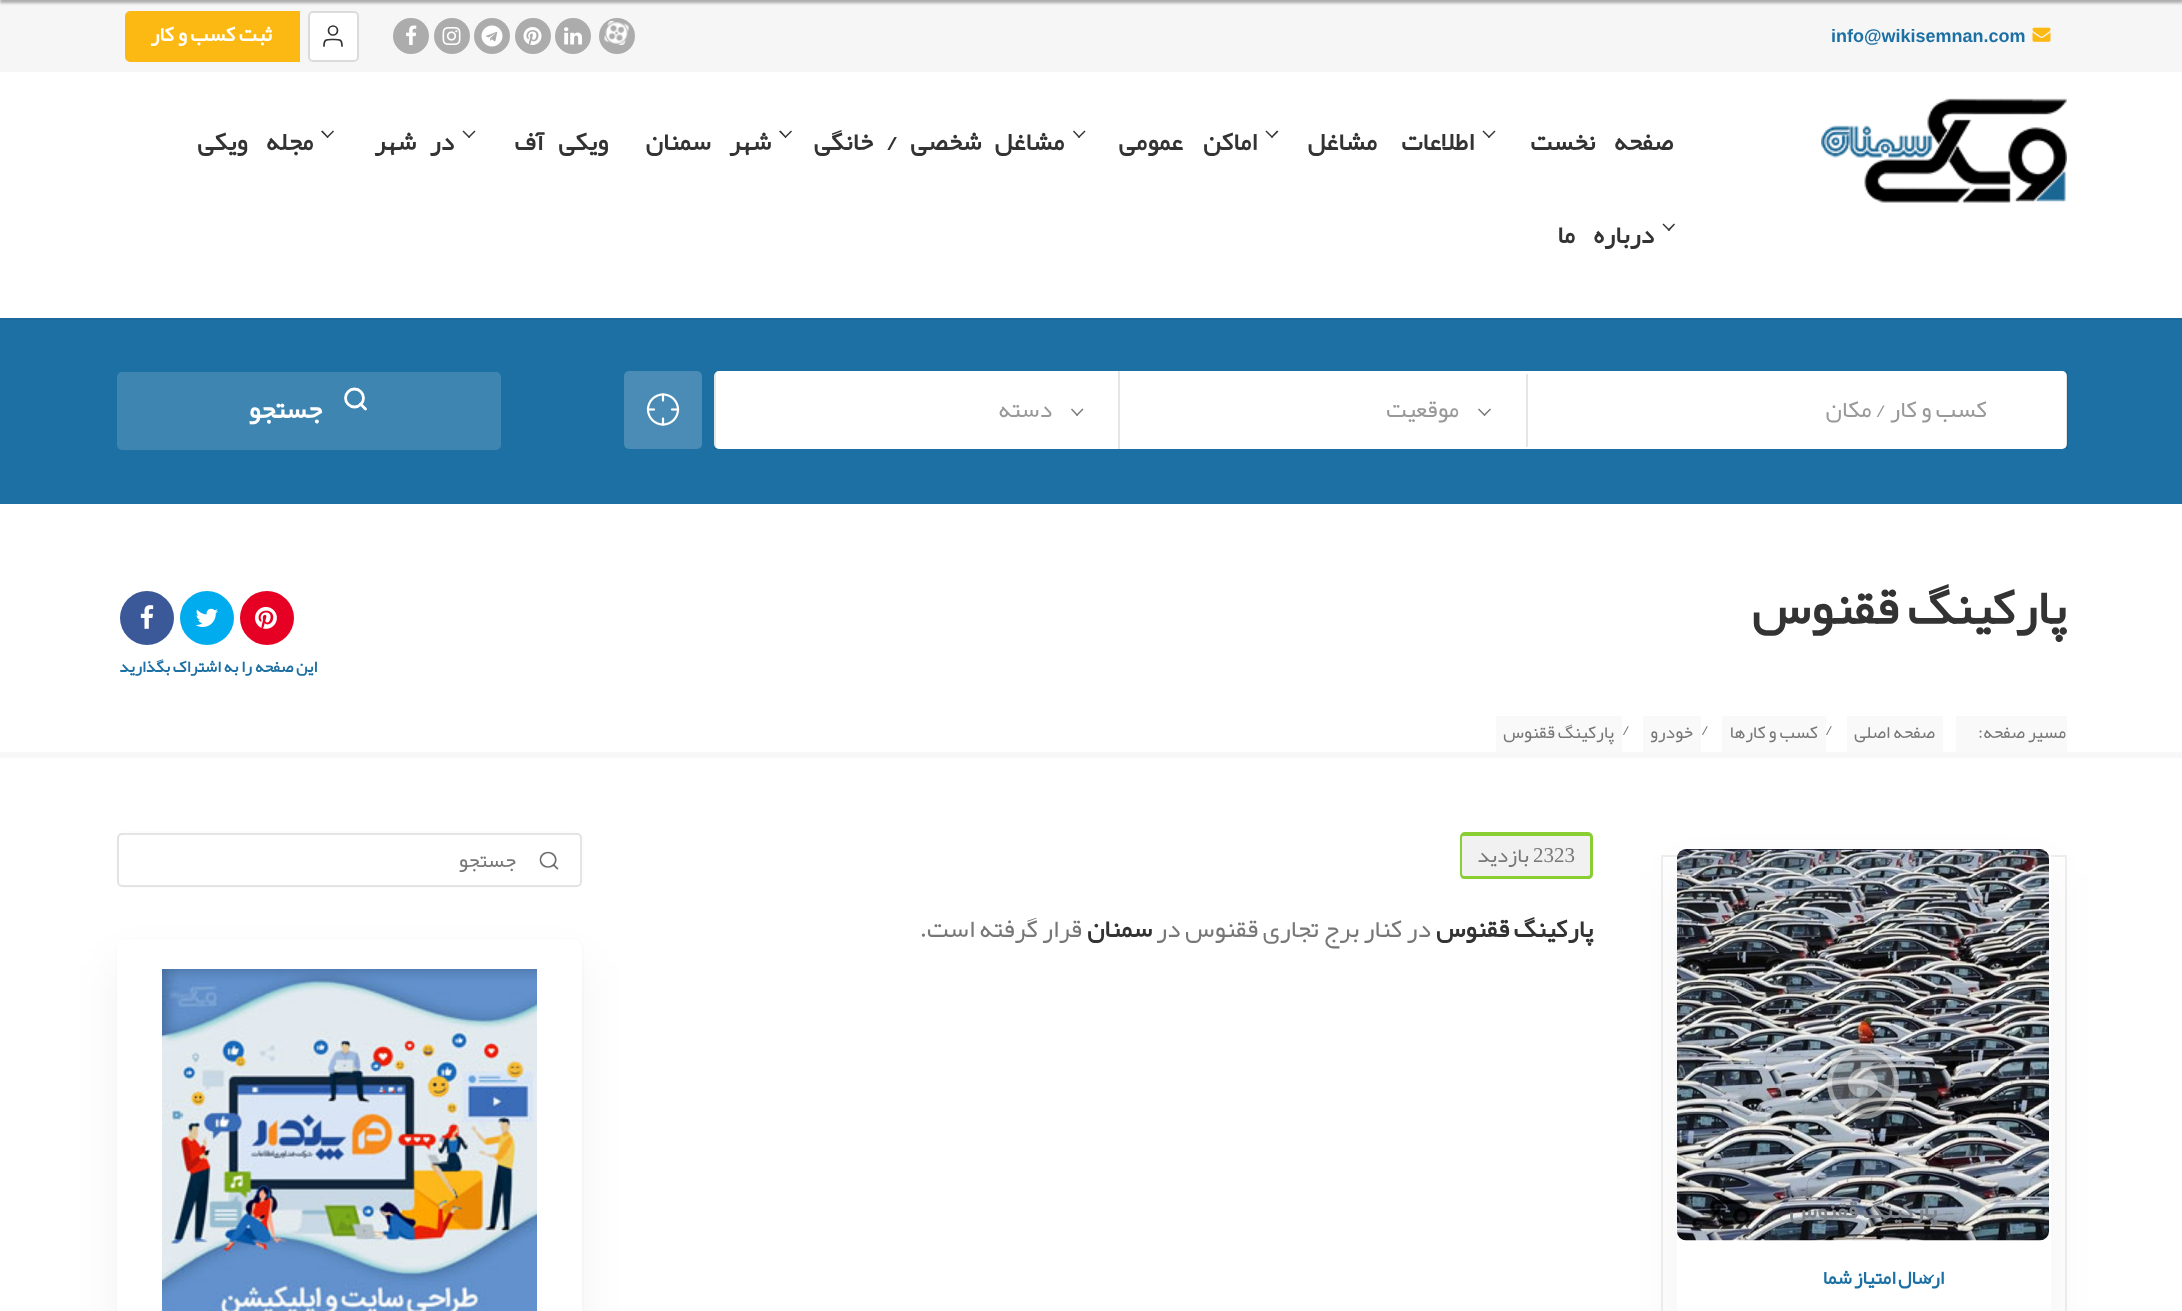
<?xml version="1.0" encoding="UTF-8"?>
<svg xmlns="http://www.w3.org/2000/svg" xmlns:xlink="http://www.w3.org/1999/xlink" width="2182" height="1311">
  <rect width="100%" height="100%" fill="#ffffff" />
  <rect width="2182" height="72" fill="#f6f6f6" />
  <rect y="-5" width="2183" height="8" fill="#000000" fill-opacity="0.3" filter="blur(1.5px)" />
  <path d="M 0 318 v 2 h 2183 v -318 h -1 v 316 z" fill="#1c6a9b" />
  <image x="2032" y="27" width="19" height="15" xlink:href="image1.png" />
  <circle cx="617" cy="36" r="18" fill="#000000" fill-opacity="0.3" />
  <image x="604" y="21" width="25" height="24" xlink:href="image2.png" />
  <circle cx="573" cy="36" r="18" fill="#000000" fill-opacity="0.3" />
  <image x="564" y="27" width="18" height="18" xlink:href="image3.png" />
  <circle cx="533" cy="36" r="18" fill="#000000" fill-opacity="0.3" />
  <image x="523" y="27" width="19" height="18" xlink:href="image4.png" />
  <circle cx="492" cy="36" r="18" fill="#000000" fill-opacity="0.3" />
  <image x="481" y="25" width="22" height="22" xlink:href="image5.png" />
  <circle cx="452" cy="36" r="18" fill="#000000" fill-opacity="0.3" />
  <image x="442" y="27" width="19" height="18" xlink:href="image6.png" />
  <circle cx="411" cy="36" r="18" fill="#acacac" />
  <image x="406" y="25" width="11" height="20" xlink:href="image7.png" />
  <rect x="308" y="11" width="51" height="51" rx="5" fill="#ffffff" />
  <rect x="309" y="12" width="49" height="49" rx="4" fill="none" stroke="#000000" stroke-opacity="0.14" stroke-width="2" />
  <circle cx="333" cy="30.5" r="4.5" fill="none" stroke="#333333" stroke-width="1.7" />
  <path d="M 342 46 c 0 -7 -2.5 -6.5 -9 -6.5 c -6.5 0 -9 -0.5 -9 6.5" fill="none" stroke="#333333" stroke-width="1.7" stroke-linecap="round" stroke-linejoin="round" />
  <rect x="126" y="12" width="173" height="49" rx="4" fill="none" stroke="#d4d4d4" stroke-width="2" />
  <path d="M 131 11 h 169 v 51 h -169 c -3.5 0 -6 -2.5 -6 -6 v -39 c 0 -3.5 2.5 -6 6 -6 z" fill="#fdb913" />
  <image x="1821" y="98" width="246" height="105" xlink:href="image8.png" />
  <path d="M 1494.5 130.5 l 1 1 l -6.5 6.5 l -1 -1 z" fill="#333333" />
  <path d="M 1483.5 130.5 l 6.5 6.5 l -1 1 l -6.5 -6.5 z" fill="#333333" />
  <path d="M 1277 130.5 l 1.5 1 l -6.5 6.5 l -1 -1 z" fill="#333333" />
  <path d="M 1266.5 130.5 l 6.5 6.5 l -1 1 l -6.5 -6.5 z" fill="#333333" />
  <path d="M 1084.5 130.5 l 1 1 l -6.5 6.5 l -1 -1 z" fill="#333333" />
  <path d="M 1074 130.5 l 6 6.5 l -1 1 l -6 -6.5 z" fill="#333333" />
  <path d="M 791 130.5 l 1 1 l -6.5 6.5 l -1 -1 z" fill="#333333" />
  <path d="M 780.5 130.5 l 6 6.5 l -1 1 l -6.5 -6.5 z" fill="#333333" />
  <path d="M 474.5 130.5 l 1 1 l -6.5 6.5 l -1 -1 z" fill="#333333" />
  <path d="M 463.5 130.5 l 6.5 6.5 l -1 1 l -6.5 -6.5 z" fill="#333333" />
  <path d="M 333 130.5 l 1 1 l -6.5 6.5 l -1 -1 z" fill="#333333" />
  <path d="M 322.5 130.5 l 6 6.5 l -1 1 l -6.5 -6.5 z" fill="#333333" />
  <path d="M 1674 223.5 l 1 1 l -6 6.5 l -1.5 -1 z" fill="#333333" />
  <path d="M 1663.5 223.5 l 6.5 6.5 l -1 1 l -6.5 -6.5 z" fill="#333333" />
  <rect y="320" width="2182" height="184" fill="#1d70a3" />
  <rect x="714" y="371" width="1353" height="78" rx="5" fill="#ffffff" />
  <rect x="2066" y="371" width="2" height="78" fill="#000000" fill-opacity="0.1" />
  <rect x="1526" y="374" width="2" height="73" fill="#e6e6e6" />
  <path d="M 1490 408.5 l 1 1 l -6.5 6.5 l -1 -1 z" fill="#777777" />
  <path d="M 1479 408.5 l 6.5 6.5 l -1 1 l -6.5 -6.5 z" fill="#777777" />
  <rect x="1118" y="371" width="2" height="78" fill="#e6e6e6" />
  <rect x="714" y="371" width="2" height="78" fill="#000000" fill-opacity="0.1" />
  <path d="M 1082.5 408.5 l 1 1 l -6.5 6.5 l -1 -1 z" fill="#777777" />
  <path d="M 1072 408.5 l 6 6.5 l -1 1 l -6 -6.5 z" fill="#777777" />
  <rect x="624" y="371" width="78" height="78" rx="5" fill="#4a8cb5" />
  <image x="646" y="393" width="34" height="33" xlink:href="image9.png" />
  <rect x="117" y="372" width="384" height="78" rx="5" fill="#3f85b1" />
  <circle cx="354.5" cy="398" r="9" fill="none" stroke="#ffffff" stroke-width="2.8" />
  <path d="M 365.5 409 l -5 -5" fill="none" stroke="#ffffff" stroke-width="2.8" stroke-linecap="round" stroke-linejoin="round" />
  <rect y="752" width="2182" height="6" fill="#f8f8f8" />
  <rect x="1956" y="716" width="111" height="36" fill="#f9f9f9" />
  <rect x="1847" y="716" width="96" height="36" fill="#f9f9f9" />
  <rect x="1722" y="716" width="104" height="36" fill="#f9f9f9" />
  <rect x="1643" y="716" width="58" height="36" fill="#f9f9f9" />
  <rect x="1496" y="716" width="126" height="36" fill="#f9f9f9" />
  <circle cx="267" cy="618" r="27" fill="#e60023" />
  <image x="255" y="607" width="22" height="22" xlink:href="image10.png" />
  <circle cx="207" cy="618" r="27" fill="#00aced" />
  <image x="196" y="608" width="22" height="19" xlink:href="image11.png" />
  <circle cx="147" cy="618" r="27" fill="#3b5998" />
  <image x="140" y="605" width="14" height="24" xlink:href="image12.png" />
  <path d="M 1465 833 h 68 v 46 h -68 c -3 0 -5 -2 -5 -5 v -36 c 0 -3 2 -5 5 -5 z" fill="#f1f1f1" />
  <path d="M 1464 832 h 69 v 47 h -69 c -2 0 -4 -2 -4 -5 v -37 c 0 -2 2 -5 4 -5 z m 0 4 h 69 v 40 h -69 c -1 0 -2 -1 -2 -2 v -37 c 0 -1 1 -1 2 -1 z" fill="#89cf34" fill-rule="evenodd" />
  <path d="M 1533 833 h 55 c 3 0 5 2 5 5 v 36 c 0 3 -2 5 -5 5 h -55 z" fill="#f1f1f1" />
  <path d="M 1533 832 h 55 c 3 0 5 3 5 5 v 37 c 0 3 -2 5 -5 5 h -55 z m 0 4 h 55 c 1 0 2 0 2 1 v 37 c 0 1 -1 2 -2 2 h -55 z" fill="#89cf34" fill-rule="evenodd" />
  <rect x="1662" y="856" width="404" height="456" fill="none" stroke="#eeeeee" stroke-width="2" />
  <rect x="1677" y="872" width="374" height="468" rx="9" fill="#000000" fill-opacity="0.05" filter="blur(22.5px)" />
  <rect x="1677" y="849" width="374" height="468" rx="9" fill="#ffffff" />
  <image x="1677" y="849" width="372" height="392" xlink:href="image14.png" />
  <image x="1827" y="1047" width="72" height="72" xlink:href="image13.png" />
  <circle cx="1863" cy="1083" r="33.5" fill="none" stroke="#ffffff" stroke-opacity="0.4" stroke-width="5" />
  <circle cx="1863" cy="1083" r="15" fill="#ffffff" fill-opacity="0.4" />
  <rect x="117" y="832" width="466" height="55" rx="10" fill="none" stroke="#fcfcfc" stroke-width="2" />
  <rect x="118" y="834" width="463" height="52" rx="4" fill="none" stroke="#000000" stroke-opacity="0.1" stroke-width="2" />
  <image x="539" y="851" width="20" height="19" xlink:href="image16.png" />
  <rect x="117" y="939" width="466" height="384" rx="10" fill="none" stroke="#fcfcfc" stroke-width="2" />
  <rect x="117" y="962" width="465" height="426" rx="9" fill="#000000" fill-opacity="0.05" filter="blur(22.5px)" />
  <rect x="117" y="939" width="465" height="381" rx="9" fill="#ffffff" />
  <image x="162" y="969" width="375" height="342" xlink:href="image17.png" />
  <text x="1831" y="42" style="font-family: Liberation Sans; font-size: 18px; font-weight: bold; fill: #1d70a3">info@wikisemnan.com</text>
  <text x="272" y="41" style="font-family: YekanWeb; font-size: 21px; font-weight: bold; direction: rtl; fill: #ffffff">ثبت کسب و کار</text>
  <text x="1673" y="150" word-spacing="14" style="font-family: YekanWeb; font-size: 25.5px; font-weight: bold; letter-spacing: -1.5px; direction: rtl; fill: #333333">صفحه نخست</text>
  <text x="1474" y="150" word-spacing="20" style="font-family: YekanWeb; font-size: 25.5px; font-weight: bold; letter-spacing: -1.5px; direction: rtl; fill: #333333">اطلاعات مشاغل</text>
  <text x="1257" y="150" word-spacing="16" style="font-family: YekanWeb; font-size: 25.5px; font-weight: bold; letter-spacing: -1.5px; direction: rtl; fill: #333333">اماکن عمومی</text>
  <text x="1064" y="150" word-spacing="9" style="font-family: YekanWeb; font-size: 25.5px; font-weight: bold; letter-spacing: -1.5px; direction: rtl; fill: #333333">مشاغل شخصی / خانگی</text>
  <text x="771" y="150" word-spacing="14" style="font-family: YekanWeb; font-size: 25.5px; font-weight: bold; letter-spacing: -1.5px; direction: rtl; fill: #333333">شهر سمنان</text>
  <text x="608" y="150" word-spacing="10" style="font-family: YekanWeb; font-size: 25.5px; font-weight: bold; letter-spacing: -1.5px; direction: rtl; fill: #333333">ویکی آف</text>
  <text x="454" y="150" word-spacing="9" style="font-family: YekanWeb; font-size: 25.5px; font-weight: bold; letter-spacing: -1.5px; direction: rtl; fill: #333333">در شهر</text>
  <text x="313" y="150" word-spacing="14" style="font-family: YekanWeb; font-size: 25.5px; font-weight: bold; letter-spacing: -1.5px; direction: rtl; fill: #333333">مجله ویکی</text>
  <text x="1654" y="243" word-spacing="14" style="font-family: YekanWeb; font-size: 25.5px; font-weight: bold; letter-spacing: -1.5px; direction: rtl; fill: #333333">درباره ما</text>
  <text x="1987" y="417" style="font-family: YekanWeb; font-size: 24px; direction: rtl; fill: #999999">کسب و کار / مکان</text>
  <text x="1459" y="417" style="font-family: YekanWeb; font-size: 24px; direction: rtl; fill: #999999">موقعیت</text>
  <text x="1052" y="417" style="font-family: YekanWeb; font-size: 24px; direction: rtl; fill: #999999">دسته</text>
  <text x="322" y="418" style="font-family: YekanWeb; font-size: 27px; font-weight: bold; direction: rtl; fill: #ffffff">جستجو</text>
  <text x="2066" y="624" style="font-family: YekanWeb; font-size: 51px; font-weight: bold; direction: rtl; fill: #333333">پارکینگ ققنوس</text>
  <text x="2066" y="738" style="font-family: YekanWeb; font-size: 18px; direction: rtl; fill: #777777">مسیر صفحه:</text>
  <text x="1935" y="738" style="font-family: YekanWeb; font-size: 18px; direction: rtl; fill: #777777">صفحه اصلی</text>
  <text x="1825" y="735" style="font-family: YekanWeb; font-size: 18px; fill: #777777">/</text>
  <text x="1818" y="738" style="font-family: YekanWeb; font-size: 18px; direction: rtl; fill: #777777">کسب و کارها</text>
  <text x="1701" y="735" style="font-family: YekanWeb; font-size: 18px; fill: #777777">/</text>
  <text x="1693" y="738" style="font-family: YekanWeb; font-size: 18px; direction: rtl; fill: #777777">خودرو</text>
  <text x="1622" y="735" style="font-family: YekanWeb; font-size: 18px; fill: #777777">/</text>
  <text x="1614" y="738" style="font-family: YekanWeb; font-size: 18px; direction: rtl; fill: #777777">پارکینگ ققنوس</text>
  <text x="317" y="672" style="font-family: YekanWeb; font-size: 16.5px; font-weight: bold; direction: rtl; fill: #1d70a3">این صفحه را به اشتراک بگذارید</text>
  <text x="1533" y="862" style="font-family: Liberation Serif; font-size: 21px; fill: #777777">2323</text>
  <text x="1529" y="862" style="font-family: YekanWeb; font-size: 21px; direction: rtl; fill: #777777">بازدید</text>
  <text x="1593" y="937" style="font-family: YekanWeb; font-size: 25.5px; font-weight: bold; direction: rtl; fill: #333333">پارکینگ ققنوس</text>
  <text x="1431" y="937" style="font-family: YekanWeb; font-size: 25.5px; direction: rtl; fill: #777777">در کنار برج تجاری ققنوس در</text>
  <text x="1152" y="937" style="font-family: YekanWeb; font-size: 25.5px; font-weight: bold; direction: rtl; fill: #333333">سمنان</text>
  <text x="1082" y="937" style="font-family: YekanWeb; font-size: 25.5px; direction: rtl; fill: #777777">قرار گرفته است.</text>
  <text x="1937" y="1218" style="font-family: YekanWeb; font-size: 24px; font-weight: bold; direction: rtl; fill: #7c8187">پارکینگ ققنوس</text>
  <text x="1944" y="1284" word-spacing="-1" style="font-family: YekanWeb; font-size: 19.5px; font-weight: bold; letter-spacing: 2px; direction: rtl; fill: #1d70a3">ارسال امتیاز شما</text>
  <image x="1923" y="1274" width="11" height="7" xlink:href="image15.png" />
  <text x="516" y="867" style="font-family: YekanWeb; font-size: 21px; direction: rtl; fill: #777777">جستجو</text>
</svg>
